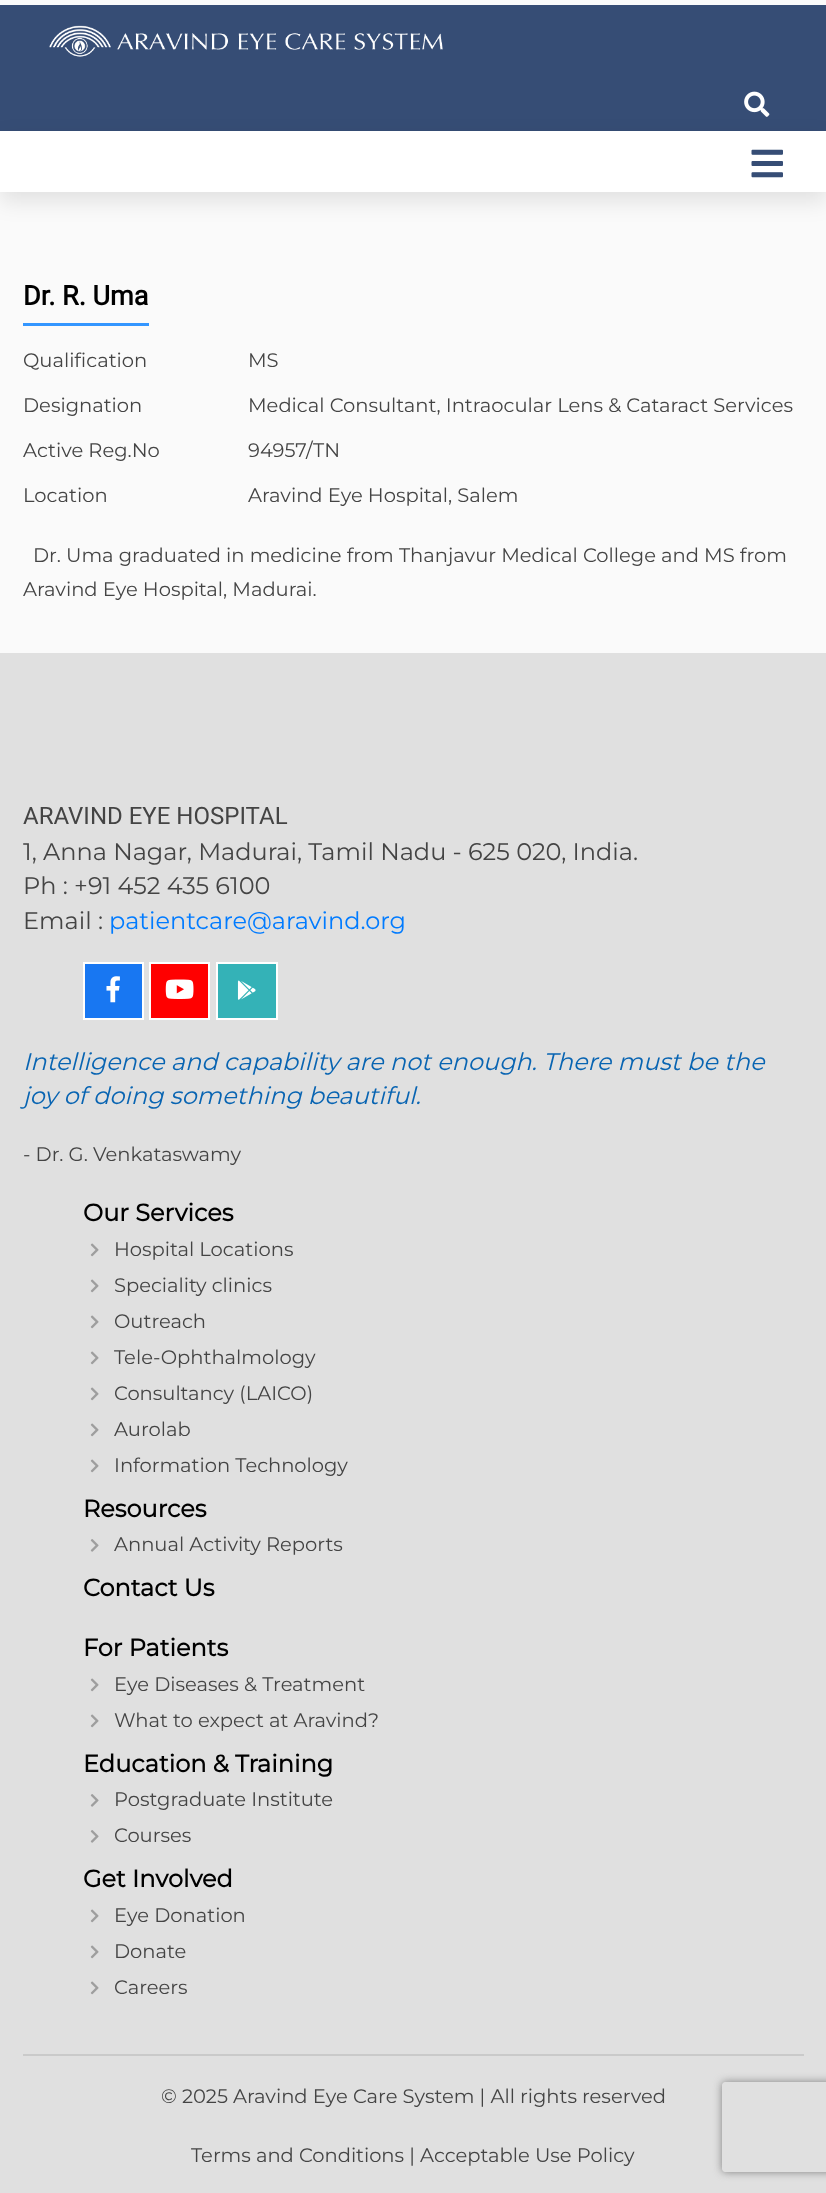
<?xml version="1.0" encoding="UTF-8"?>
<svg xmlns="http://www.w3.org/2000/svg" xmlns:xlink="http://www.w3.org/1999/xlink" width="826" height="2193">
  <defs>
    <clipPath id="clip1"><path d="M 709 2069 h 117 v 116 h -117 z m 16 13 h 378 c 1.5 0 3 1.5 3 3 v 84 c 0 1.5 -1.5 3 -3 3 h -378 c -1.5 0 -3 -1.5 -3 -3 v -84 c 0 -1.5 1.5 -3 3 -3 z" clip-rule="evenodd" /></clipPath>
  </defs>
  <rect width="100%" height="100%" fill="#fafafa" />
  <rect y="5" width="826" height="126" fill="#364d75" />
  <image x="49" y="25" width="394" height="32" xlink:href="image1.png" />
  <image x="744" y="91" width="26" height="26" xlink:href="image2.png" />
  <rect y="140" width="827" height="61" fill="#000000" fill-opacity="0.1" filter="blur(11px)" />
  <rect y="131" width="826" height="61" fill="#ffffff" />
  <image x="751" y="149" width="32" height="29" xlink:href="image3.png" />
  <rect x="23" y="323" width="126" height="3" fill="#3396ff" />
  <rect y="653" width="826" height="1540" fill="#e0e0e0" />
  <rect x="84" y="963" width="59" height="56" fill="#1877f2" stroke="#ffffff" stroke-width="2" />
  <image x="106" y="976" width="14" height="27" xlink:href="image4.png" />
  <rect x="150" y="963" width="59" height="56" fill="#ff0000" stroke="#ffffff" stroke-width="2" />
  <image x="165" y="979" width="29" height="20" xlink:href="image5.png" />
  <rect x="217" y="963" width="60" height="56" fill="#34b2b7" stroke="#ffffff" stroke-width="2" />
  <image x="237" y="980" width="19" height="20" xlink:href="image6.png" />
  <image x="90" y="1243" width="9" height="14" xlink:href="image7.png" />
  <image x="90" y="1279" width="9" height="14" xlink:href="image7.png" />
  <image x="90" y="1315" width="9" height="14" xlink:href="image7.png" />
  <image x="90" y="1351" width="9" height="14" xlink:href="image7.png" />
  <image x="90" y="1387" width="9" height="14" xlink:href="image7.png" />
  <image x="90" y="1423" width="9" height="14" xlink:href="image7.png" />
  <image x="90" y="1459" width="9" height="14" xlink:href="image7.png" />
  <image x="90" y="1539" width="9" height="13" xlink:href="image8.png" />
  <image x="90" y="1678" width="9" height="14" xlink:href="image7.png" />
  <image x="90" y="1714" width="9" height="14" xlink:href="image7.png" />
  <image x="90" y="1794" width="9" height="13" xlink:href="image8.png" />
  <image x="90" y="1830" width="9" height="13" xlink:href="image8.png" />
  <image x="90" y="1909" width="9" height="14" xlink:href="image7.png" />
  <image x="90" y="1945" width="9" height="14" xlink:href="image7.png" />
  <image x="90" y="1981" width="9" height="14" xlink:href="image7.png" />
  <rect x="23" y="2054" width="781" height="2" fill="#cacaca" />
  <g clip-path="url(#clip1)">
    <rect x="722" y="2082" width="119" height="90" rx="3" fill="#808080" filter="blur(4px)" />
  </g>
  <text x="23" y="305" style="font-family: Roboto; font-size: 27px; font-weight: bold; fill: #000000">Dr. R. Uma</text>
  <text x="23" y="367" style="font-family: Montserrat; font-size: 19.5px; font-weight: 100; fill: #444444">Qualification</text>
  <text x="248" y="367" style="font-family: Montserrat; font-size: 19.5px; font-weight: 100; fill: #444444">MS</text>
  <text x="23" y="412" style="font-family: Montserrat; font-size: 19.5px; font-weight: 100; fill: #444444">Designation</text>
  <text x="248" y="412" style="font-family: Montserrat; font-size: 19.5px; font-weight: 100; fill: #444444">Medical Consultant, Intraocular Lens &amp; Cataract Services</text>
  <text x="23" y="457" style="font-family: Montserrat; font-size: 19.5px; font-weight: 100; fill: #444444">Active Reg.No</text>
  <text x="248" y="457" style="font-family: Montserrat; font-size: 19.5px; font-weight: 100; fill: #444444">94957/TN</text>
  <text x="23" y="502" style="font-family: Montserrat; font-size: 19.5px; font-weight: 100; fill: #444444">Location</text>
  <text x="248" y="502" style="font-family: Montserrat; font-size: 19.5px; font-weight: 100; fill: #444444">Aravind Eye Hospital, Salem</text>
  <text x="33" y="562" style="font-family: Montserrat; font-size: 19.5px; font-weight: 100; fill: #444444">Dr. Uma graduated in medicine from Thanjavur Medical College and MS from</text>
  <text x="23" y="596" style="font-family: Montserrat; font-size: 19.5px; font-weight: 100; fill: #444444">Aravind Eye Hospital, Madurai.</text>
  <text x="23" y="824" style="font-family: Roboto; font-size: 24px; fill: #444444">ARAVIND EYE HOSPITAL</text>
  <text x="23" y="860" style="font-family: Montserrat; font-size: 24px; font-weight: 100; fill: #444444">1, Anna Nagar, Madurai, Tamil Nadu - 625 020, India.</text>
  <text x="23" y="894" style="font-family: Montserrat; font-size: 24px; font-weight: 100; fill: #444444">Ph : +91 452 435 6100</text>
  <text x="23" y="929" style="font-family: Montserrat; font-size: 24px; font-weight: 100; fill: #444444">Email :</text>
  <text x="109" y="929" style="font-family: Montserrat; font-size: 24px; font-weight: 100; fill: #007bff">patientcare@aravind.org</text>
  <text x="23" y="1070" style="font-family: Montserrat; font-size: 24px; font-weight: 100; font-style: italic; fill: #0864b2">Intelligence and capability are not enough. There must be the</text>
  <text x="23" y="1104" style="font-family: Montserrat; font-size: 24px; font-weight: 100; font-style: italic; fill: #0864b2">joy of doing something beautiful.</text>
  <text x="23" y="1161" style="font-family: Montserrat; font-size: 19.5px; font-weight: 100; fill: #444444">- Dr. G. Venkataswamy</text>
  <text x="83" y="1221" style="font-family: Montserrat; font-size: 24px; font-weight: bold; fill: #000000">Our Services</text>
  <text x="114" y="1256" style="font-family: Montserrat; font-size: 19.5px; font-weight: 100; fill: #444444">Hospital Locations</text>
  <text x="114" y="1292" style="font-family: Montserrat; font-size: 19.5px; font-weight: 100; fill: #444444">Speciality clinics</text>
  <text x="114" y="1328" style="font-family: Montserrat; font-size: 19.5px; font-weight: 100; fill: #444444">Outreach</text>
  <text x="114" y="1364" style="font-family: Montserrat; font-size: 19.5px; font-weight: 100; fill: #444444">Tele-Ophthalmology</text>
  <text x="114" y="1400" style="font-family: Montserrat; font-size: 19.5px; font-weight: 100; fill: #444444">Consultancy (LAICO)</text>
  <text x="114" y="1436" style="font-family: Montserrat; font-size: 19.5px; font-weight: 100; fill: #444444">Aurolab</text>
  <text x="114" y="1472" style="font-family: Montserrat; font-size: 19.5px; font-weight: 100; fill: #444444">Information Technology</text>
  <text x="83" y="1517" style="font-family: Montserrat; font-size: 24px; font-weight: bold; fill: #000000">Resources</text>
  <text x="114" y="1551" style="font-family: Montserrat; font-size: 19.5px; font-weight: 100; fill: #444444">Annual Activity Reports</text>
  <text x="83" y="1596" style="font-family: Montserrat; font-size: 24px; font-weight: bold; fill: #000000">Contact Us</text>
  <text x="83" y="1656" style="font-family: Montserrat; font-size: 24px; font-weight: bold; fill: #000000">For Patients</text>
  <text x="114" y="1691" style="font-family: Montserrat; font-size: 19.5px; font-weight: 100; fill: #444444">Eye Diseases &amp; Treatment</text>
  <text x="114" y="1727" style="font-family: Montserrat; font-size: 19.5px; font-weight: 100; fill: #444444">What to expect at Aravind?</text>
  <text x="83" y="1772" style="font-family: Montserrat; font-size: 24px; font-weight: bold; fill: #000000">Education &amp; Training</text>
  <text x="114" y="1806" style="font-family: Montserrat; font-size: 19.5px; font-weight: 100; fill: #444444">Postgraduate Institute</text>
  <text x="114" y="1842" style="font-family: Montserrat; font-size: 19.5px; font-weight: 100; fill: #444444">Courses</text>
  <text x="83" y="1887" style="font-family: Montserrat; font-size: 24px; font-weight: bold; fill: #000000">Get Involved</text>
  <text x="114" y="1922" style="font-family: Montserrat; font-size: 19.5px; font-weight: 100; fill: #444444">Eye Donation</text>
  <text x="114" y="1958" style="font-family: Montserrat; font-size: 19.5px; font-weight: 100; fill: #444444">Donate</text>
  <text x="114" y="1994" style="font-family: Montserrat; font-size: 19.5px; font-weight: 100; fill: #444444">Careers</text>
  <text x="161" y="2103" style="font-family: Montserrat; font-size: 19.5px; font-weight: 100; fill: #444444">© 2025 Aravind Eye Care System | All rights reserved</text>
  <text x="191" y="2162" style="font-family: Montserrat; font-size: 19.5px; font-weight: 100; fill: #444444">Terms and Conditions | Acceptable Use Policy</text>
</svg>
